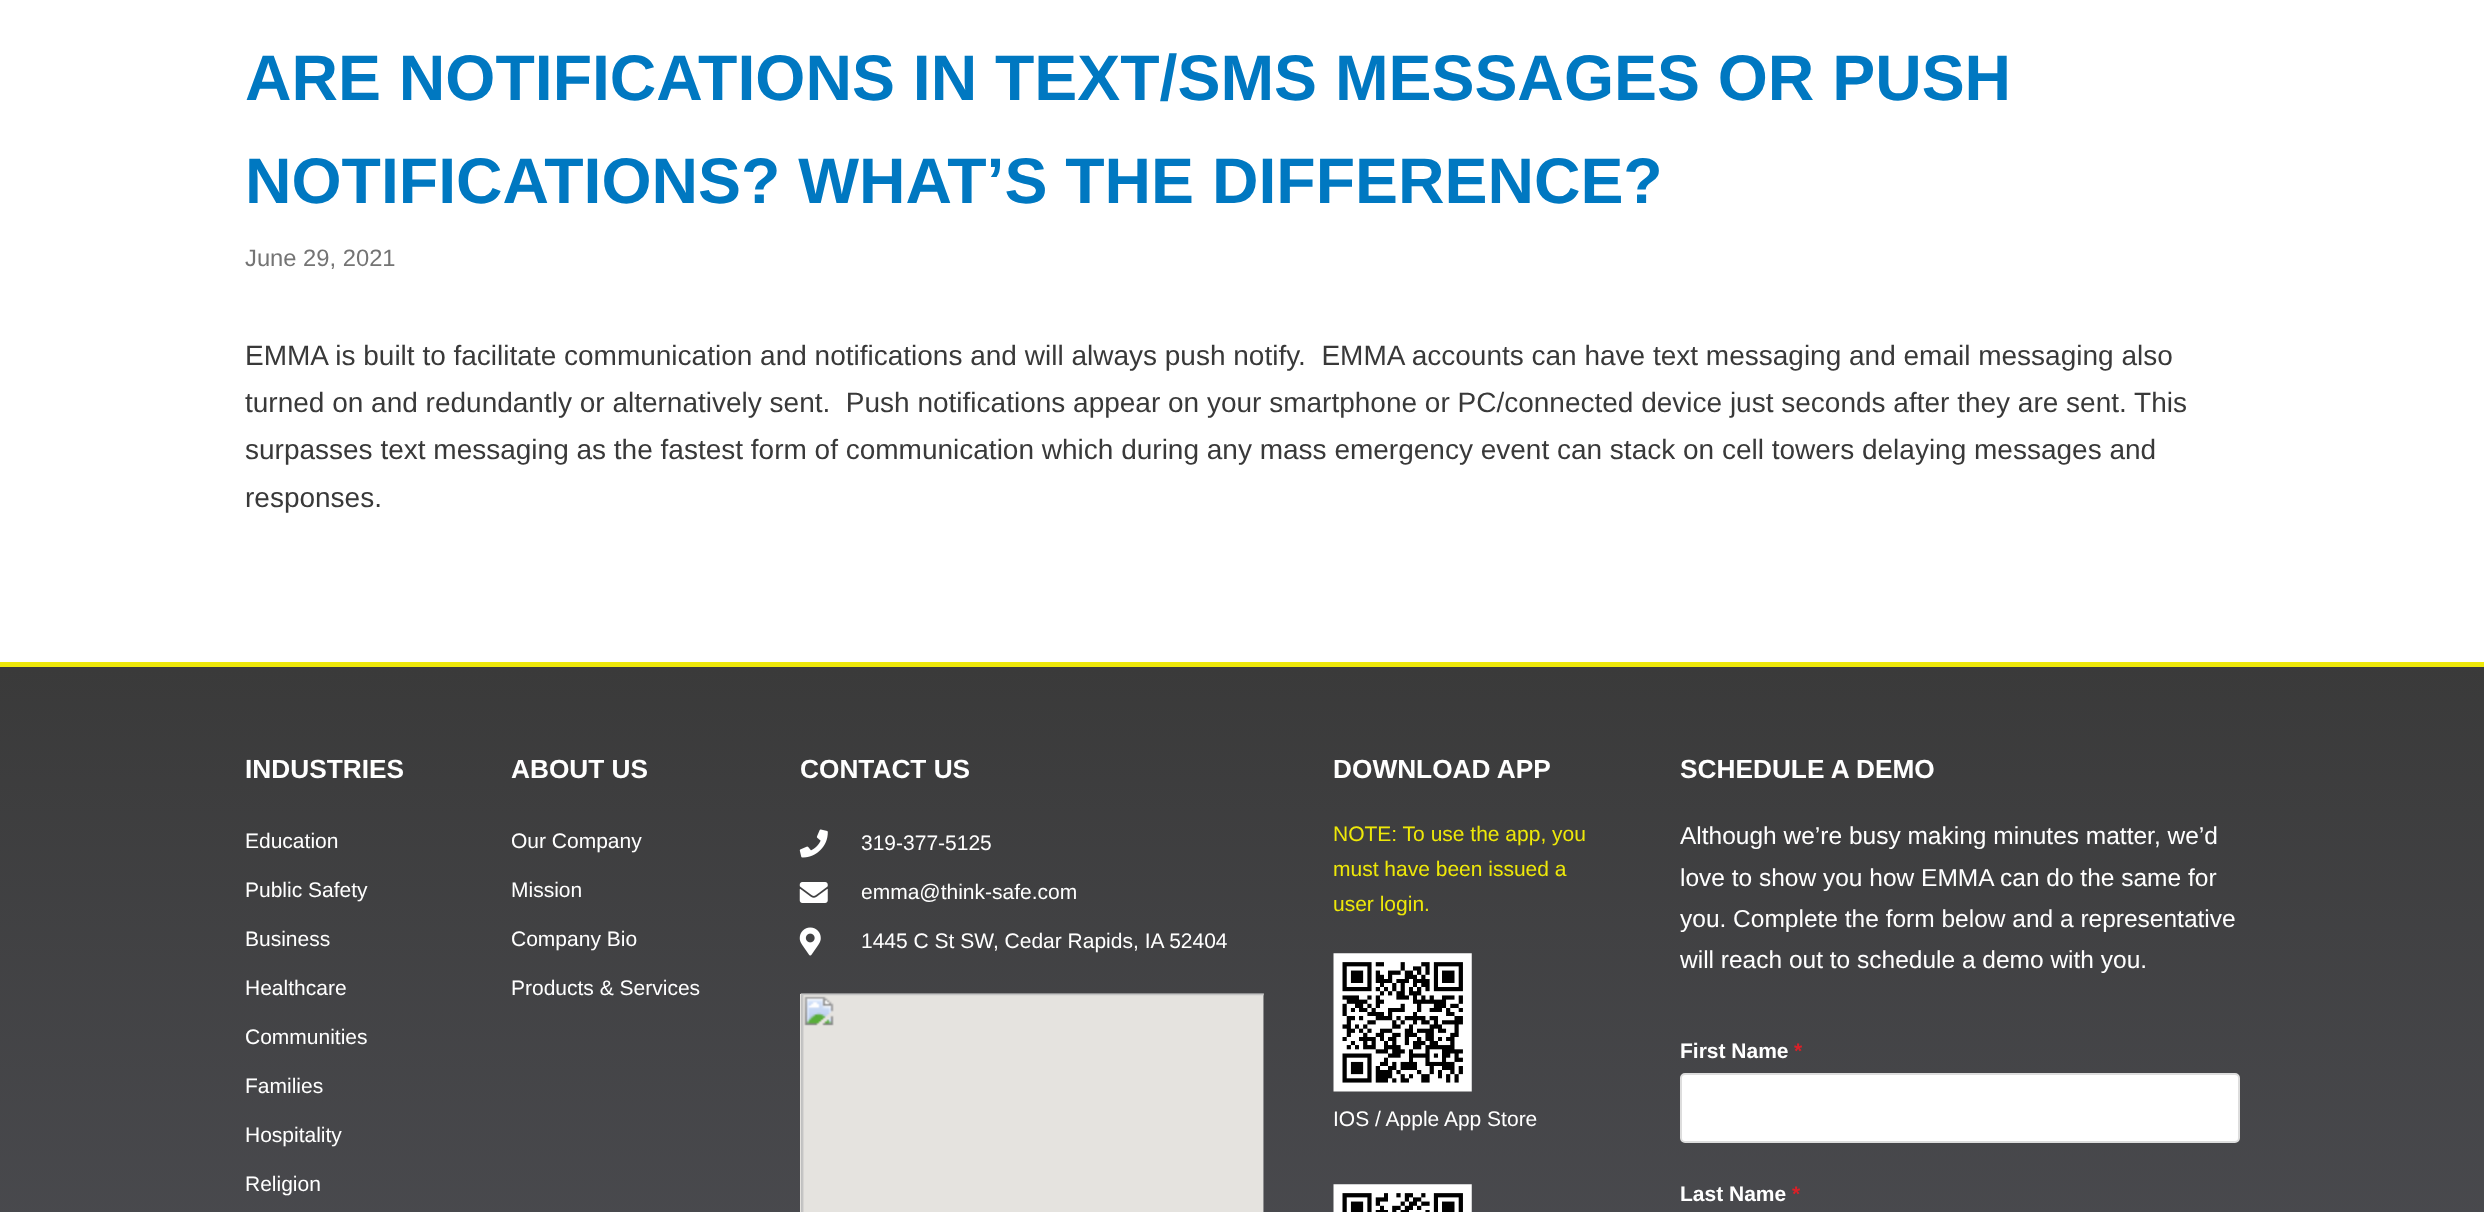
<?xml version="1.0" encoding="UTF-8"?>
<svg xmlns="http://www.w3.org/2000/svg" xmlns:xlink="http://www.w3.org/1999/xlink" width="2484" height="1212">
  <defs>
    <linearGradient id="g1" gradientUnits="userSpaceOnUse" x1="1243" y1="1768" x2="1242" y2="667"><stop offset="0" stop-color="#575860" /><stop offset="1" stop-color="#3a3a3a" /></linearGradient>
  </defs>
  <rect width="100%" height="100%" fill="#ffffff" />
  <rect y="667" width="2484" height="545" fill="url(#g1)" />
  <rect y="662" width="2484" height="5" fill="#eee809" />
  <image x="799" y="829" width="29" height="29" xlink:href="image1.png" />
  <image x="799" y="882" width="29" height="21" xlink:href="image2.png" />
  <image x="799" y="927" width="22" height="29" xlink:href="image3.png" />
  <image x="800" y="993" width="464" height="219" xlink:href="image4.png" />
  <image x="1333" y="953" width="139" height="139" xlink:href="image5.png" />
  <image x="1333" y="1184" width="139" height="28" xlink:href="image6.png" />
  <rect x="1681" y="1074" width="558" height="68" rx="4" fill="#ffffff" stroke="#dddddd" stroke-width="2" />
  <text x="245" y="100" style="font-family: Liberation Sans; font-size: 64.4px; font-weight: bold; fill: #0078c1">ARE NOTIFICATIONS IN TEXT/SMS MESSAGES OR PUSH</text>
  <text x="245" y="203" style="font-family: Liberation Sans; font-size: 64.4px; font-weight: bold; fill: #0078c1">NOTIFICATIONS? WHAT’S THE DIFFERENCE?</text>
  <text x="245" y="266" style="font-family: Liberation Sans; font-size: 23.75px; fill: #747474">June 29, 2021</text>
  <text x="245" y="365" style="font-family: Liberation Sans; font-size: 28px; fill: #393939" xml:space="preserve">EMMA is built to facilitate communication and notifications and will always push notify.  EMMA accounts can have text messaging and email messaging also</text>
  <text x="245" y="412" style="font-family: Liberation Sans; font-size: 28px; fill: #393939" xml:space="preserve">turned on and redundantly or alternatively sent.  Push notifications appear on your smartphone or PC/connected device just seconds after they are sent. This</text>
  <text x="245" y="459" style="font-family: Liberation Sans; font-size: 28px; fill: #393939">surpasses text messaging as the fastest form of communication which during any mass emergency event can stack on cell towers delaying messages and</text>
  <text x="245" y="507" style="font-family: Liberation Sans; font-size: 28px; fill: #393939">responses.</text>
  <text x="245" y="778" style="font-family: Liberation Sans; font-size: 26.25px; font-weight: bold; fill: #ffffff">INDUSTRIES</text>
  <text x="245" y="848" style="font-family: Liberation Sans; font-size: 21px; fill: #ffffff">Education</text>
  <text x="245" y="897" style="font-family: Liberation Sans; font-size: 21px; fill: #ffffff">Public Safety</text>
  <text x="245" y="946" style="font-family: Liberation Sans; font-size: 21px; fill: #ffffff">Business</text>
  <text x="245" y="995" style="font-family: Liberation Sans; font-size: 21px; fill: #ffffff">Healthcare</text>
  <text x="245" y="1044" style="font-family: Liberation Sans; font-size: 21px; fill: #ffffff">Communities</text>
  <text x="245" y="1093" style="font-family: Liberation Sans; font-size: 21px; fill: #ffffff">Families</text>
  <text x="245" y="1142" style="font-family: Liberation Sans; font-size: 21px; fill: #ffffff">Hospitality</text>
  <text x="245" y="1191" style="font-family: Liberation Sans; font-size: 21px; fill: #ffffff">Religion</text>
  <text x="511" y="778" style="font-family: Liberation Sans; font-size: 26.25px; font-weight: bold; fill: #ffffff">ABOUT US</text>
  <text x="511" y="848" style="font-family: Liberation Sans; font-size: 21px; fill: #ffffff">Our Company</text>
  <text x="511" y="897" style="font-family: Liberation Sans; font-size: 21px; fill: #ffffff">Mission</text>
  <text x="511" y="946" style="font-family: Liberation Sans; font-size: 21px; fill: #ffffff">Company Bio</text>
  <text x="511" y="995" style="font-family: Liberation Sans; font-size: 21px; fill: #ffffff">Products &amp; Services</text>
  <text x="800" y="778" style="font-family: Liberation Sans; font-size: 26.25px; font-weight: bold; fill: #ffffff">CONTACT US</text>
  <text x="861" y="850" style="font-family: Liberation Sans; font-size: 21px; fill: #ffffff">319-377-5125</text>
  <text x="861" y="899" style="font-family: Liberation Sans; font-size: 21px; fill: #ffffff">emma@think-safe.com</text>
  <text x="861" y="948" style="font-family: Liberation Sans; font-size: 21px; fill: #ffffff">1445 C St SW, Cedar Rapids, IA 52404</text>
  <text x="1333" y="778" style="font-family: Liberation Sans; font-size: 26.25px; font-weight: bold; fill: #ffffff">DOWNLOAD APP</text>
  <text x="1333" y="841" style="font-family: Liberation Sans; font-size: 21px; fill: #eee809">NOTE: To use the app, you</text>
  <text x="1333" y="876" style="font-family: Liberation Sans; font-size: 21px; fill: #eee809">must have been issued a</text>
  <text x="1333" y="911" style="font-family: Liberation Sans; font-size: 21px; fill: #eee809">user login.</text>
  <text x="1333" y="1126" style="font-family: Liberation Sans; font-size: 21px; fill: #ffffff">IOS / Apple App Store</text>
  <text x="1680" y="778" style="font-family: Liberation Sans; font-size: 26.25px; font-weight: bold; fill: #ffffff">SCHEDULE A DEMO</text>
  <text x="1680" y="844" style="font-family: Liberation Sans; font-size: 24.5px; fill: #ffffff">Although we’re busy making minutes matter, we’d</text>
  <text x="1680" y="886" style="font-family: Liberation Sans; font-size: 24.5px; fill: #ffffff">love to show you how EMMA can do the same for</text>
  <text x="1680" y="927" style="font-family: Liberation Sans; font-size: 24.5px; fill: #ffffff">you. Complete the form below and a representative</text>
  <text x="1680" y="968" style="font-family: Liberation Sans; font-size: 24.5px; fill: #ffffff">will reach out to schedule a demo with you.</text>
  <text x="1680" y="1058" style="font-family: Liberation Sans; font-size: 21px; font-weight: bold; fill: #ffffff">First Name</text>
  <text x="1794" y="1058" style="font-family: Liberation Sans; font-size: 21px; font-weight: bold; fill: #da2028">*</text>
  <text x="1680" y="1201" style="font-family: Liberation Sans; font-size: 21px; font-weight: bold; fill: #ffffff">Last Name</text>
  <text x="1792" y="1201" style="font-family: Liberation Sans; font-size: 21px; font-weight: bold; fill: #da2028">*</text>
</svg>
